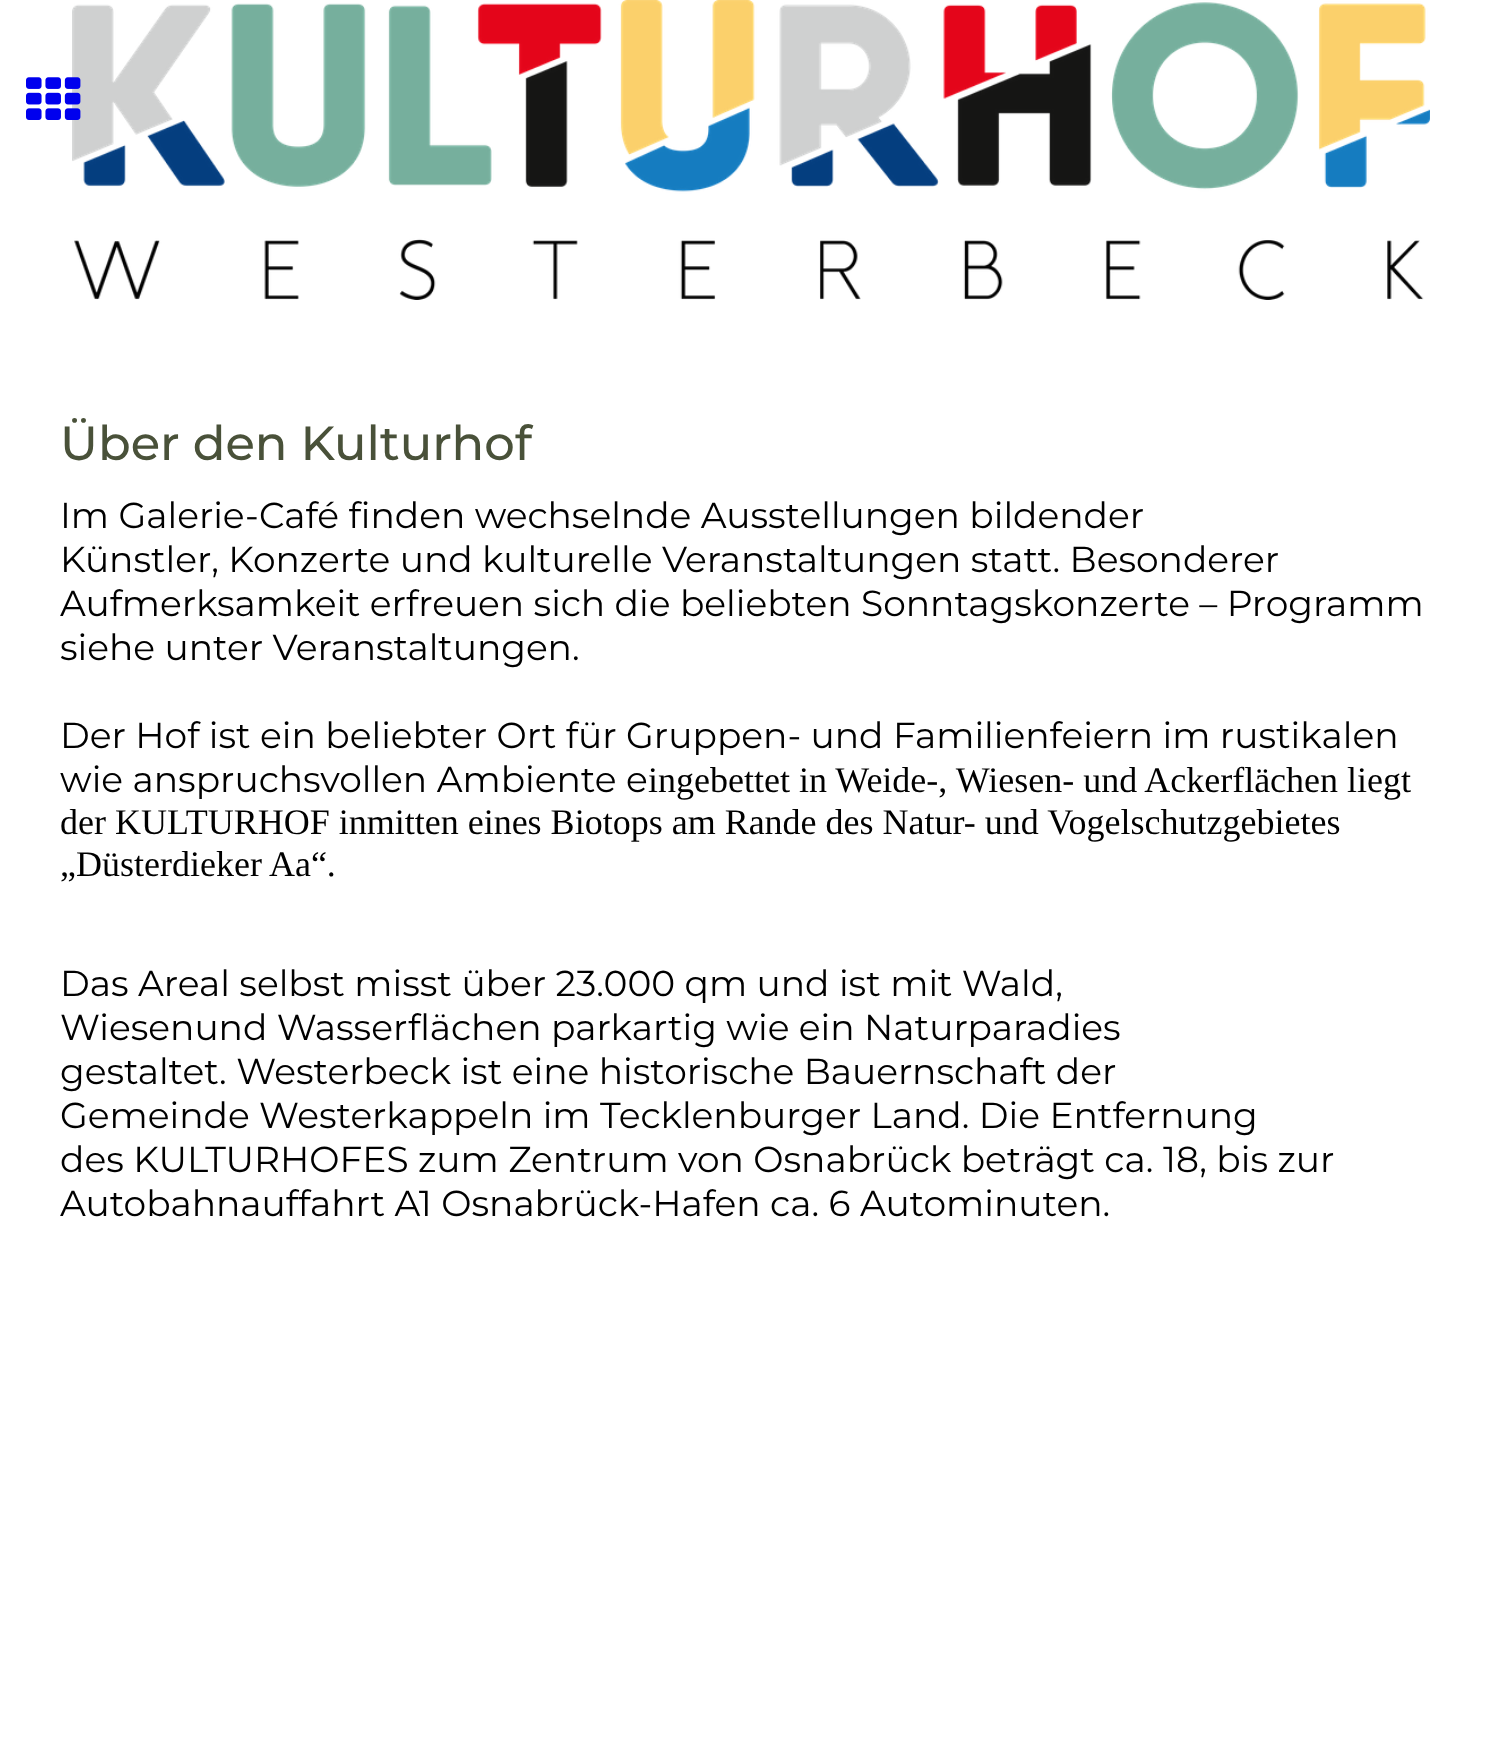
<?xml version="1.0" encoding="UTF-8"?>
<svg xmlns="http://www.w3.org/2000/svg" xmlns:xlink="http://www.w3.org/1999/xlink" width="1500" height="1755">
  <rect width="100%" height="100%" fill="#ffffff" />
  <image x="72" y="0" width="1358" height="300" xlink:href="image2.png" />
  <image x="26" y="77" width="55" height="43" xlink:href="image1.png" />
  <text x="60" y="460" style="font-family: Montserrat; font-size: 48px; font-weight: 500; fill: #495139">Über den Kulturhof</text>
  <text x="60" y="528" style="font-family: Montserrat; font-size: 36px; fill: #000000">Im Galerie-Café finden wechselnde Ausstellungen bildender</text>
  <text x="60" y="572" style="font-family: Montserrat; font-size: 36px; fill: #000000">Künstler, Konzerte und kulturelle Veranstaltungen statt. Besonderer</text>
  <text x="60" y="616" style="font-family: Montserrat; font-size: 36px; fill: #000000">Aufmerksamkeit erfreuen sich die beliebten Sonntagskonzerte – Programm</text>
  <text x="60" y="660" style="font-family: Montserrat; font-size: 36px; fill: #000000">siehe unter Veranstaltungen.</text>
  <text x="60" y="748" style="font-family: Montserrat; font-size: 36px; fill: #000000">Der Hof ist ein beliebter Ort für Gruppen- und Familienfeiern im rustikalen</text>
  <text x="60" y="792" style="font-family: Montserrat; font-size: 36px; fill: #000000">wie anspruchsvollen Ambiente e</text>
  <text x="648" y="792" style="font-family: Liberation Serif; font-size: 36px; fill: #000000">ingebettet in Weide-, Wiesen- und Ackerflächen liegt</text>
  <text x="60" y="834" style="font-family: Liberation Serif; font-size: 36px; fill: #000000">der KULTURHOF inmitten eines Biotops am Rande des Natur- und Vogelschutzgebietes</text>
  <text x="60" y="876" style="font-family: Liberation Serif; font-size: 36px; fill: #000000">„Düsterdieker Aa“.</text>
  <text x="60" y="996" style="font-family: Montserrat; font-size: 36px; fill: #000000">Das Areal selbst misst über 23.000 qm und ist mit Wald,</text>
  <text x="60" y="1040" style="font-family: Montserrat; font-size: 36px; fill: #000000">Wiesenund Wasserflächen parkartig wie ein Naturparadies</text>
  <text x="60" y="1084" style="font-family: Montserrat; font-size: 36px; fill: #000000">gestaltet. Westerbeck ist eine historische Bauernschaft der</text>
  <text x="60" y="1128" style="font-family: Montserrat; font-size: 36px; fill: #000000">Gemeinde Westerkappeln im Tecklenburger Land. Die Entfernung</text>
  <text x="60" y="1172" style="font-family: Montserrat; font-size: 36px; fill: #000000">des KULTURHOFES zum Zentrum von Osnabrück beträgt ca. 18, bis zur</text>
  <text x="60" y="1216" style="font-family: Montserrat; font-size: 36px; fill: #000000">Autobahnauffahrt A1 Osnabrück-Hafen ca. 6 Autominuten.</text>
</svg>
